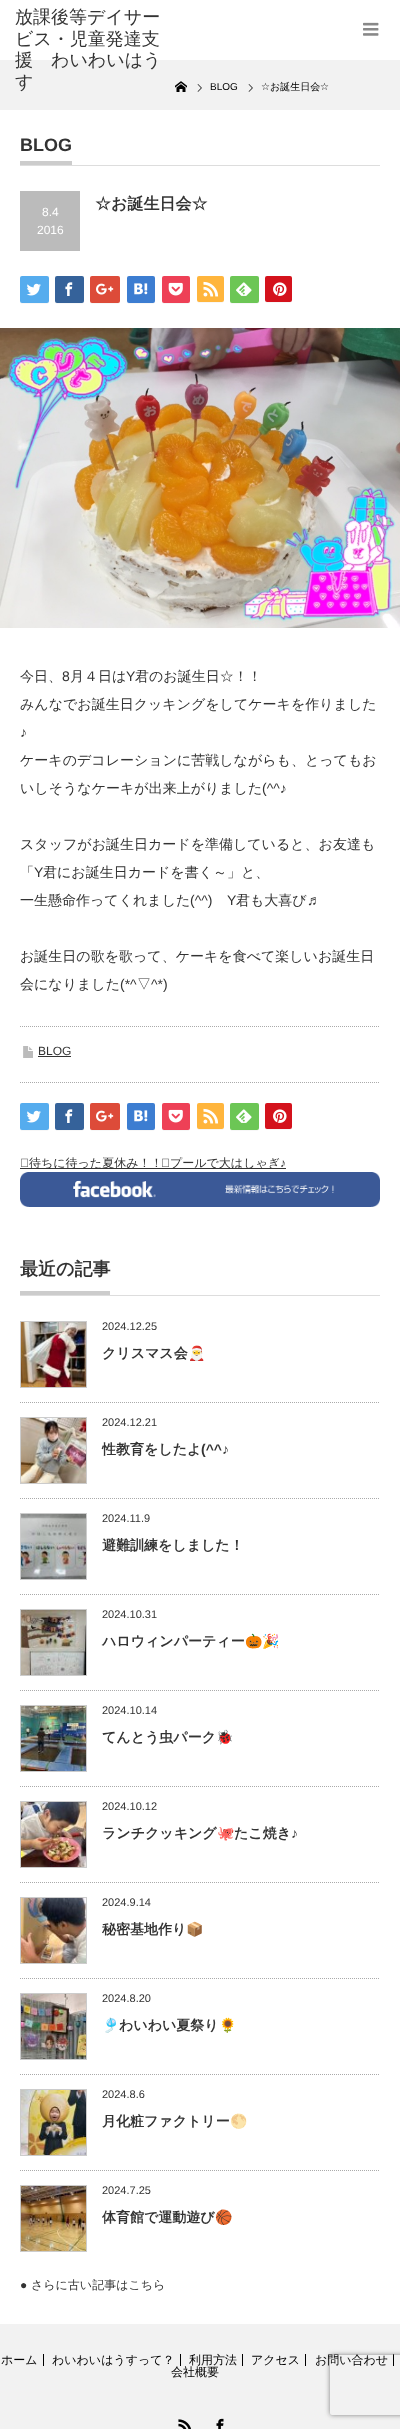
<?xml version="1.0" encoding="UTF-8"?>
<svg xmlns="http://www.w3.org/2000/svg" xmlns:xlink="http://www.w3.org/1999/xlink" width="400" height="2429">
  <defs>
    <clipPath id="clip1"><path d="M 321 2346 h 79 v 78 h -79 z m 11 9 h 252 c 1 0 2 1 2 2 v 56 c 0 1 -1 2 -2 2 h -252 c -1 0 -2 -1 -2 -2 v -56 c 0 -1 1 -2 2 -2 z" clip-rule="evenodd" /></clipPath>
  </defs>
  <rect width="100%" height="100%" fill="#ffffff" />
  <image x="363" y="22" width="16" height="14" xlink:href="image1.png" />
  <rect y="60" width="400" height="50" fill="#f2f2f2" />
  <image x="175" y="81" width="12" height="11" xlink:href="image2.png" />
  <image x="197" y="84" width="5" height="8" xlink:href="image3.png" />
  <image x="248" y="84" width="5" height="8" xlink:href="image3.png" />
  <rect x="20" y="165" width="360" height="1" fill="#dddddd" />
  <rect x="20" y="161" width="52" height="4" fill="#cccccc" />
  <rect x="20" y="191" width="60" height="60" fill="#bbbbbb" />
  <path d="M 20 301 c 0 4 2.5 3 6 3 h 17 c 3.5 0 6 1 6 -3 c 0 1 -1 2 -2 2 h -25 c -1 0 -2 -1 -2 -2 z" fill="#f7f7f7" />
  <rect x="20" y="276" width="29" height="27" rx="2" fill="#55acee" />
  <image x="26" y="283" width="15" height="13" xlink:href="image4.png" />
  <path d="M 55 301 c 0 4 2.5 3 6 3 h 17 c 3.5 0 6 1 6 -3 c 0 1 -1 2 -2 2 h -25 c -1 0 -2 -1 -2 -2 z" fill="#f7f7f7" />
  <rect x="55" y="276" width="29" height="27" rx="2" fill="#35629a" />
  <image x="65" y="282" width="8" height="14" xlink:href="image5.png" />
  <path d="M 90 301 c 0 4 2.5 3 6.5 3 h 17 c 4 0 6.5 1 6.5 -3 c 0 1 -1 2 -2 2 h -26 c -1 0 -2 -1 -2 -2 z" fill="#f7f7f7" />
  <rect x="90" y="276" width="30" height="27" rx="2" fill="#dd4b39" />
  <image x="96" y="283" width="18" height="12" xlink:href="image6.png" />
  <path d="M 127 301 c 0 4 2.5 3 6 3 h 16 c 3.5 0 6 1 6 -3 c 0 1 -1 2 -2 2 h -24 c -1 0 -2 -1 -2 -2 z" fill="#f7f7f7" />
  <rect x="127" y="276" width="28" height="27" rx="2" fill="#3c7dd1" />
  <image x="134" y="283" width="14" height="12" xlink:href="image7.png" />
  <path d="M 162 301 c 0 4 2.5 3 6 3 h 16 c 3.5 0 6 1 6 -3 c 0 1 -1 2 -2 2 h -24 c -1 0 -2 -1 -2 -2 z" fill="#f7f7f7" />
  <rect x="162" y="276" width="28" height="27" rx="2" fill="#ee4056" />
  <image x="168" y="282" width="15" height="14" xlink:href="image8.png" />
  <path d="M 197 300 c 0 4 2.5 3 6 3 h 15 c 3.5 0 6 1 6 -3 c 0 1 -1 2 -2 2 h -23 c -1 0 -2 -1 -2 -2 z" fill="#f7f7f7" />
  <rect x="197" y="276" width="27" height="26" rx="2" fill="#ffb53c" />
  <image x="203" y="281" width="16" height="16" xlink:href="image9.png" />
  <path d="M 230 301 c 0 4 2.5 3 6 3 h 17 c 3.5 0 6 1 6 -3 c 0 1 -1 2 -2 2 h -25 c -1 0 -2 -1 -2 -2 z" fill="#f7f7f7" />
  <rect x="230" y="276" width="29" height="27" rx="2" fill="#6cc655" />
  <image x="236" y="282" width="16" height="14" xlink:href="image10.png" />
  <path d="M 265 300 c 0 4 2.5 3 6 3 h 15 c 3.5 0 6 1 6 -3 c 0 1 -1 2 -2 2 h -23 c -1 0 -2 -1 -2 -2 z" fill="#f7f7f7" />
  <rect x="265" y="276" width="27" height="26" rx="2" fill="#d4121c" />
  <image x="273" y="282" width="14" height="14" xlink:href="image11.png" />
  <image x="0" y="328" width="400" height="300" xlink:href="image12.png" />
  <path d="M 20 1026.5 h 360" fill="none" stroke="#aaaaaa" stroke-dasharray="1 1" />
  <path d="M 20 1082.5 h 360" fill="none" stroke="#aaaaaa" stroke-dasharray="1 1" />
  <image x="23" y="1046" width="10" height="12" xlink:href="image13.png" />
  <rect x="38" y="1056" width="33" height="1" fill="#333333" />
  <path d="M 20 1128 c 0 4 2.5 3 6 3 h 17 c 3.5 0 6 1 6 -3 c 0 1 -1 2 -2 2 h -25 c -1 0 -2 -1 -2 -2 z" fill="#f7f7f7" />
  <rect x="20" y="1103" width="29" height="27" rx="2" fill="#55acee" />
  <image x="26" y="1110" width="15" height="13" xlink:href="image4.png" />
  <path d="M 55 1128 c 0 4 2.5 3 6 3 h 17 c 3.5 0 6 1 6 -3 c 0 1 -1 2 -2 2 h -25 c -1 0 -2 -1 -2 -2 z" fill="#f7f7f7" />
  <rect x="55" y="1103" width="29" height="27" rx="2" fill="#35629a" />
  <image x="65" y="1109" width="8" height="14" xlink:href="image5.png" />
  <path d="M 90 1128 c 0 4 2.5 3 6.5 3 h 17 c 4 0 6.5 1 6.5 -3 c 0 1 -1 2 -2 2 h -26 c -1 0 -2 -1 -2 -2 z" fill="#f7f7f7" />
  <rect x="90" y="1103" width="30" height="27" rx="2" fill="#dd4b39" />
  <image x="96" y="1110" width="18" height="12" xlink:href="image6.png" />
  <path d="M 127 1128 c 0 4 2.5 3 6 3 h 16 c 3.5 0 6 1 6 -3 c 0 1 -1 2 -2 2 h -24 c -1 0 -2 -1 -2 -2 z" fill="#f7f7f7" />
  <rect x="127" y="1103" width="28" height="27" rx="2" fill="#3c7dd1" />
  <image x="134" y="1110" width="14" height="12" xlink:href="image7.png" />
  <path d="M 162 1128 c 0 4 2.5 3 6 3 h 16 c 3.5 0 6 1 6 -3 c 0 1 -1 2 -2 2 h -24 c -1 0 -2 -1 -2 -2 z" fill="#f7f7f7" />
  <rect x="162" y="1103" width="28" height="27" rx="2" fill="#ee4056" />
  <image x="168" y="1109" width="15" height="14" xlink:href="image8.png" />
  <path d="M 197 1127 c 0 4 2.5 3 6 3 h 15 c 3.5 0 6 1 6 -3 c 0 1 -1 2 -2 2 h -23 c -1 0 -2 -1 -2 -2 z" fill="#f7f7f7" />
  <rect x="197" y="1103" width="27" height="26" rx="2" fill="#ffb53c" />
  <image x="203" y="1108" width="16" height="16" xlink:href="image9.png" />
  <path d="M 230 1128 c 0 4 2.5 3 6 3 h 17 c 3.5 0 6 1 6 -3 c 0 1 -1 2 -2 2 h -25 c -1 0 -2 -1 -2 -2 z" fill="#f7f7f7" />
  <rect x="230" y="1103" width="29" height="27" rx="2" fill="#6cc655" />
  <image x="236" y="1109" width="16" height="14" xlink:href="image10.png" />
  <path d="M 265 1127 c 0 4 2.5 3 6 3 h 15 c 3.5 0 6 1 6 -3 c 0 1 -1 2 -2 2 h -23 c -1 0 -2 -1 -2 -2 z" fill="#f7f7f7" />
  <rect x="265" y="1103" width="27" height="26" rx="2" fill="#d4121c" />
  <image x="273" y="1109" width="14" height="14" xlink:href="image11.png" />
  <image x="21" y="1158" width="7" height="9" xlink:href="image14.png" />
  <rect x="20" y="1168" width="266" height="1" fill="#333333" />
  <image x="162" y="1158" width="7" height="9" xlink:href="image14.png" />
  <image x="20" y="1172" width="360" height="35" xlink:href="image15.png" />
  <rect x="20" y="1295" width="360" height="1" fill="#dddddd" />
  <rect x="20" y="1291" width="90" height="4" fill="#cccccc" />
  <path d="M 20 1402.5 h 360" fill="none" stroke="#aaaaaa" stroke-dasharray="1 1" />
  <rect x="20.5" y="1321.5" width="66" height="66" fill="none" stroke="#cccccc" />
  <image x="21" y="1322" width="65" height="65" xlink:href="image16.png" />
  <path d="M 20 1498.5 h 360" fill="none" stroke="#aaaaaa" stroke-dasharray="1 1" />
  <rect x="20.5" y="1417.5" width="66" height="66" fill="none" stroke="#cccccc" />
  <image x="21" y="1418" width="65" height="65" xlink:href="image17.png" />
  <path d="M 20 1594.5 h 360" fill="none" stroke="#aaaaaa" stroke-dasharray="1 1" />
  <rect x="20.5" y="1513.5" width="66" height="66" fill="none" stroke="#cccccc" />
  <image x="21" y="1514" width="65" height="65" xlink:href="image18.png" />
  <path d="M 20 1690.5 h 360" fill="none" stroke="#aaaaaa" stroke-dasharray="1 1" />
  <rect x="20.5" y="1609.5" width="66" height="66" fill="none" stroke="#cccccc" />
  <image x="21" y="1610" width="65" height="65" xlink:href="image19.png" />
  <path d="M 20 1786.5 h 360" fill="none" stroke="#aaaaaa" stroke-dasharray="1 1" />
  <rect x="20.5" y="1705.5" width="66" height="66" fill="none" stroke="#cccccc" />
  <image x="21" y="1706" width="65" height="65" xlink:href="image20.png" />
  <path d="M 20 1882.5 h 360" fill="none" stroke="#aaaaaa" stroke-dasharray="1 1" />
  <rect x="20.5" y="1801.5" width="66" height="66" fill="none" stroke="#cccccc" />
  <image x="21" y="1802" width="65" height="65" xlink:href="image21.png" />
  <path d="M 20 1978.5 h 360" fill="none" stroke="#aaaaaa" stroke-dasharray="1 1" />
  <rect x="20.5" y="1897.5" width="66" height="66" fill="none" stroke="#cccccc" />
  <image x="21" y="1898" width="65" height="65" xlink:href="image22.png" />
  <path d="M 20 2074.5 h 360" fill="none" stroke="#aaaaaa" stroke-dasharray="1 1" />
  <rect x="20.5" y="1993.5" width="66" height="66" fill="none" stroke="#cccccc" />
  <image x="21" y="1994" width="65" height="65" xlink:href="image23.png" />
  <path d="M 20 2170.5 h 360" fill="none" stroke="#aaaaaa" stroke-dasharray="1 1" />
  <rect x="20.5" y="2089.5" width="66" height="66" fill="none" stroke="#cccccc" />
  <image x="21" y="2090" width="65" height="65" xlink:href="image24.png" />
  <rect x="20.5" y="2185.5" width="66" height="66" fill="none" stroke="#cccccc" />
  <image x="21" y="2186" width="65" height="65" xlink:href="image25.png" />
  <rect y="2324" width="400" height="105" fill="#f2f2f2" />
  <rect x="393" y="2354" width="1" height="12" fill="#000000" />
  <g clip-path="url(#clip1)">
    <rect x="330" y="2355" width="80" height="60" rx="2" fill="#808080" filter="blur(2.5px)" />
  </g>
  <rect x="43" y="2354" width="1" height="12" fill="#000000" />
  <rect x="180" y="2354" width="1" height="12" fill="#000000" />
  <rect x="242" y="2354" width="1" height="12" fill="#000000" />
  <rect x="305" y="2354" width="1" height="12" fill="#000000" />
  <image x="178" y="2419" width="13" height="10" xlink:href="image26.png" />
  <image x="216" y="2418" width="8" height="11" xlink:href="image27.png" />
  <text x="15" y="23" style="font-family: WenQuanYi Zen Hei; font-size: 18px; font-weight: 500; fill: #333333">放課後等デイサー</text>
  <text x="15" y="45" style="font-family: WenQuanYi Zen Hei; font-size: 18px; font-weight: 500; fill: #333333">ビス・児童発達支</text>
  <text x="15" y="66" style="font-family: WenQuanYi Zen Hei; font-size: 18px; font-weight: 500; fill: #333333">援　わいわいはう</text>
  <text x="15" y="88" style="font-family: WenQuanYi Zen Hei; font-size: 18px; font-weight: 500; fill: #333333">す</text>
  <text x="210" y="90" style="font-family: Liberation Sans; font-size: 10px; fill: #000000">BLOG</text>
  <text x="261" y="90" style="font-family: DejaVu Sans; font-size: 10px; fill: #000000">☆</text>
  <text x="270" y="90" style="font-family: WenQuanYi Zen Hei; font-size: 10px; font-weight: 500; fill: #000000">お誕生日会</text>
  <text x="320" y="90" style="font-family: DejaVu Sans; font-size: 10px; fill: #000000">☆</text>
  <text x="20" y="151" style="font-family: Liberation Sans; font-size: 18px; font-weight: bold; fill: #333333">BLOG</text>
  <text x="95" y="209" style="font-family: WenQuanYi Zen Hei; font-size: 16px; font-weight: bold; fill: #333333">☆お誕生日会☆</text>
  <text x="42" y="216" style="font-family: Liberation Sans; font-size: 12px; fill: #ffffff">8.4</text>
  <text x="37" y="234" style="font-family: Liberation Sans; font-size: 12px; fill: #ffffff">2016</text>
  <text x="20" y="681" style="font-family: WenQuanYi Zen Hei; font-size: 14px; font-weight: 500; fill: #333333">今日、</text>
  <text x="62" y="681" style="font-family: Liberation Sans; font-size: 14px; fill: #333333">8</text>
  <text x="70" y="681" style="font-family: WenQuanYi Zen Hei; font-size: 14px; font-weight: 500; fill: #333333">月４日は</text>
  <text x="126" y="681" style="font-family: Liberation Sans; font-size: 14px; fill: #333333">Y</text>
  <text x="135" y="681" style="font-family: WenQuanYi Zen Hei; font-size: 14px; font-weight: 500; fill: #333333">君のお誕生日☆！！</text>
  <text x="20" y="709" style="font-family: WenQuanYi Zen Hei; font-size: 14px; font-weight: 500; fill: #333333">みんなでお誕生日クッキングをしてケーキを作りました</text>
  <text x="20" y="737" style="font-family: Liberation Sans; font-size: 14px; fill: #333333">♪</text>
  <text x="20" y="765" style="font-family: WenQuanYi Zen Hei; font-size: 14px; font-weight: 500; fill: #333333">ケーキのデコレーションに苦戦しながらも、とってもお</text>
  <text x="20" y="793" style="font-family: WenQuanYi Zen Hei; font-size: 14px; font-weight: 500; fill: #333333">いしそうなケーキが出来上がりました</text>
  <text x="262" y="793" style="font-family: Liberation Sans; font-size: 14px; fill: #333333">(^^♪</text>
  <text x="20" y="849" style="font-family: WenQuanYi Zen Hei; font-size: 14px; font-weight: 500; fill: #333333">スタッフがお誕生日カードを準備していると、お友達も</text>
  <text x="20" y="877" style="font-family: WenQuanYi Zen Hei; font-size: 14px; font-weight: 500; fill: #333333">「</text>
  <text x="34" y="877" style="font-family: Liberation Sans; font-size: 14px; fill: #333333">Y</text>
  <text x="43" y="877" style="font-family: WenQuanYi Zen Hei; font-size: 14px; font-weight: 500; fill: #333333">君にお誕生日カードを書く～」と、</text>
  <text x="20" y="905" style="font-family: WenQuanYi Zen Hei; font-size: 14px; font-weight: 500; fill: #333333">一生懸命作ってくれました</text>
  <text x="190" y="905" style="font-family: Liberation Sans; font-size: 14px; fill: #333333">(^^)</text>
  <text x="227" y="905" style="font-family: Liberation Sans; font-size: 14px; fill: #333333">Y</text>
  <text x="236" y="905" style="font-family: WenQuanYi Zen Hei; font-size: 14px; font-weight: 500; fill: #333333">君も大喜び</text>
  <text x="307" y="905" style="font-family: Liberation Sans; font-size: 14px; fill: #333333">♬</text>
  <text x="20" y="961" style="font-family: WenQuanYi Zen Hei; font-size: 14px; font-weight: 500; fill: #333333">お誕生日の歌を歌って、ケーキを食べて楽しいお誕生日</text>
  <text x="20" y="989" style="font-family: WenQuanYi Zen Hei; font-size: 14px; font-weight: 500; fill: #333333">会になりました</text>
  <text x="120" y="989" style="font-family: Liberation Sans; font-size: 14px; fill: #333333">(*^</text>
  <text x="137" y="989" style="font-family: WenQuanYi Zen Hei; font-size: 14px; font-weight: 500; fill: #333333">▽</text>
  <text x="151" y="989" style="font-family: Liberation Sans; font-size: 14px; fill: #333333">^*)</text>
  <text x="38" y="1055" style="font-family: Liberation Sans; font-size: 12px; fill: #333333">BLOG</text>
  <text x="29" y="1167" style="font-family: WenQuanYi Zen Hei; font-size: 12px; font-weight: 500; fill: #333333">待ちに待った夏休み！！</text>
  <text x="170" y="1167" style="font-family: WenQuanYi Zen Hei; font-size: 12px; font-weight: 500; fill: #333333">プールで大はしゃぎ</text>
  <text x="280" y="1167" style="font-family: Liberation Sans; font-size: 12px; fill: #333333">♪</text>
  <text x="20" y="1275" style="font-family: WenQuanYi Zen Hei; font-size: 18px; font-weight: bold; fill: #333333">最近の記事</text>
  <text x="102" y="1330" style="font-family: Liberation Sans; font-size: 11px; fill: #333333">2024.12.25</text>
  <text x="102" y="1358" style="font-family: WenQuanYi Zen Hei; font-size: 14px; font-weight: bold; fill: #333333">クリスマス会</text>
  <text x="188" y="1358" style="font-family: Noto Color Emoji; font-size: 14px; font-weight: bold; fill: #333333">🎅</text>
  <text x="102" y="1426" style="font-family: Liberation Sans; font-size: 11px; fill: #333333">2024.12.21</text>
  <text x="102" y="1454" style="font-family: WenQuanYi Zen Hei; font-size: 14px; font-weight: bold; fill: #333333">性教育をしたよ</text>
  <text x="201" y="1454" style="font-family: Liberation Sans; font-size: 14px; font-weight: bold; fill: #333333">(^^♪</text>
  <text x="102" y="1522" style="font-family: Liberation Sans; font-size: 11px; fill: #333333">2024.11.9</text>
  <text x="102" y="1550" style="font-family: WenQuanYi Zen Hei; font-size: 14px; font-weight: bold; fill: #333333">避難訓練をしました！</text>
  <text x="102" y="1618" style="font-family: Liberation Sans; font-size: 11px; fill: #333333">2024.10.31</text>
  <text x="102" y="1646" style="font-family: WenQuanYi Zen Hei; font-size: 14px; font-weight: bold; fill: #333333">ハロウィンパーティー</text>
  <text x="245" y="1646" style="font-family: Noto Color Emoji; font-size: 14px; font-weight: bold; fill: #333333">🎃🎉</text>
  <text x="102" y="1714" style="font-family: Liberation Sans; font-size: 11px; fill: #333333">2024.10.14</text>
  <text x="102" y="1742" style="font-family: WenQuanYi Zen Hei; font-size: 14px; font-weight: bold; fill: #333333">てんとう虫パーク</text>
  <text x="216" y="1742" style="font-family: Noto Color Emoji; font-size: 14px; font-weight: bold; fill: #333333">🐞</text>
  <text x="102" y="1810" style="font-family: Liberation Sans; font-size: 11px; fill: #333333">2024.10.12</text>
  <text x="102" y="1838" style="font-family: WenQuanYi Zen Hei; font-size: 14px; font-weight: bold; fill: #333333">ランチクッキング</text>
  <text x="217" y="1838" style="font-family: Noto Color Emoji; font-size: 14px; font-weight: bold; fill: #333333">🐙</text>
  <text x="234" y="1838" style="font-family: WenQuanYi Zen Hei; font-size: 14px; font-weight: bold; fill: #333333">たこ焼き</text>
  <text x="291" y="1838" style="font-family: Liberation Sans; font-size: 14px; font-weight: bold; fill: #333333">♪</text>
  <text x="102" y="1906" style="font-family: Liberation Sans; font-size: 11px; fill: #333333">2024.9.14</text>
  <text x="102" y="1934" style="font-family: WenQuanYi Zen Hei; font-size: 14px; font-weight: bold; fill: #333333">秘密基地作り</text>
  <text x="186" y="1934" style="font-family: Noto Color Emoji; font-size: 14px; font-weight: bold; fill: #333333">📦</text>
  <text x="102" y="2002" style="font-family: Liberation Sans; font-size: 11px; fill: #333333">2024.8.20</text>
  <text x="102" y="2030" style="font-family: Noto Color Emoji; font-size: 14px; font-weight: bold; fill: #333333">🎐</text>
  <text x="119" y="2030" style="font-family: WenQuanYi Zen Hei; font-size: 14px; font-weight: bold; fill: #333333">わいわい夏祭り</text>
  <text x="219" y="2030" style="font-family: Noto Color Emoji; font-size: 14px; font-weight: bold; fill: #333333">🌻</text>
  <text x="102" y="2098" style="font-family: Liberation Sans; font-size: 11px; fill: #333333">2024.8.6</text>
  <text x="102" y="2126" style="font-family: WenQuanYi Zen Hei; font-size: 14px; font-weight: bold; fill: #333333">月化粧ファクトリー</text>
  <text x="230" y="2126" style="font-family: Noto Color Emoji; font-size: 14px; font-weight: bold; fill: #333333">🌕</text>
  <text x="102" y="2194" style="font-family: Liberation Sans; font-size: 11px; fill: #333333">2024.7.25</text>
  <text x="102" y="2222" style="font-family: WenQuanYi Zen Hei; font-size: 14px; font-weight: bold; fill: #333333">体育館で運動遊び</text>
  <text x="215" y="2222" style="font-family: Noto Color Emoji; font-size: 14px; font-weight: bold; fill: #333333">🏀</text>
  <text x="20" y="2289" style="font-family: Liberation Sans; font-size: 12px; fill: #333333">●</text>
  <text x="31" y="2289" style="font-family: WenQuanYi Zen Hei; font-size: 12px; font-weight: 500; fill: #333333">さらに古い記事はこちら</text>
  <text x="1" y="2364" style="font-family: WenQuanYi Zen Hei; font-size: 12px; font-weight: 500; fill: #000000">ホーム</text>
  <text x="52" y="2364" style="font-family: WenQuanYi Zen Hei; font-size: 12px; font-weight: 500; fill: #000000">わいわいはうすって？</text>
  <text x="189" y="2364" style="font-family: WenQuanYi Zen Hei; font-size: 12px; font-weight: 500; fill: #000000">利用方法</text>
  <text x="251" y="2364" style="font-family: WenQuanYi Zen Hei; font-size: 12px; font-weight: 500; fill: #000000">アクセス</text>
  <text x="315" y="2364" style="font-family: WenQuanYi Zen Hei; font-size: 12px; font-weight: 500; fill: #000000">お問い合わせ</text>
  <text x="171" y="2376" style="font-family: WenQuanYi Zen Hei; font-size: 12px; font-weight: 500; fill: #000000">会社概要</text>
</svg>
